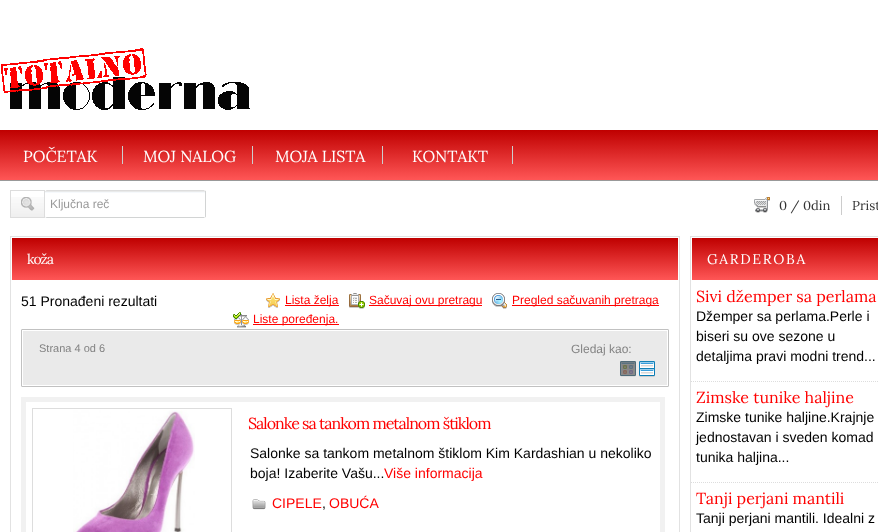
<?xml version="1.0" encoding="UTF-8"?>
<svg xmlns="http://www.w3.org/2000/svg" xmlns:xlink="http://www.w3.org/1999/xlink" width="878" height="532">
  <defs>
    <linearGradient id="g1" gradientUnits="userSpaceOnUse" x1="480" y1="130" x2="480" y2="180"><stop offset="0" stop-color="#bf0000" /><stop offset="1" stop-color="#ff5656" /></linearGradient>
    <linearGradient id="g2" gradientUnits="userSpaceOnUse" x1="345" y1="238" x2="345" y2="280"><stop offset="0" stop-color="#bf0000" /><stop offset="1" stop-color="#ff5656" /></linearGradient>
    <linearGradient id="g3" gradientUnits="userSpaceOnUse" x1="820" y1="238" x2="820" y2="280"><stop offset="0" stop-color="#bf0000" /><stop offset="1" stop-color="#ff5656" /></linearGradient>
  </defs>
  <rect width="100%" height="100%" fill="#ffffff" />
  <image x="1" y="48" width="249" height="62" xlink:href="image1.png" />
  <rect y="130" width="878" height="50" fill="url(#g1)" />
  <rect x="122" y="146" width="1" height="18" fill="#cdcece" />
  <rect x="252" y="146" width="1" height="18" fill="#cdcece" />
  <rect x="382" y="146" width="1" height="18" fill="#cdcece" />
  <rect x="512" y="146" width="1" height="18" fill="#cdcece" />
  <rect y="180" width="878" height="1" fill="#999999" />
  <image x="11" y="197" width="33" height="20" xlink:href="image2.png" />
  <rect x="10.5" y="190.5" width="34" height="27" fill="none" stroke="#dddddd" />
  <image x="45" y="191" width="161" height="2" xlink:href="image3.png" />
  <path d="M 47 190 c -1 0 -2 1 -2 2 c 0 -1 1 -1 2 -1 h 158 l -1 -1 z" fill="#dddddd" />
  <path d="M 205 217 v -26 l 0.5 -0.5 c 0.5 0.5 0.5 1 0.5 1.5 v 24 c 0 0.5 0 1 -0.5 1.5 z" fill="#d2d4d4" />
  <path d="M 47 218 h 157 l 1 -1 h -158 c -1 0 -2 0 -2 -1 c 0 1 1 2 2 2 z" fill="#d2d4d4" />
  <rect x="841" y="196" width="1" height="19" fill="#cccccc" />
  <image x="754" y="197" width="16" height="16" xlink:href="image4.png" />
  <rect x="10.5" y="236.5" width="669" height="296" fill="none" stroke="#e2e2e2" />
  <rect x="12" y="238" width="666" height="42" fill="url(#g2)" />
  <image x="266" y="293" width="14" height="15" xlink:href="image5.png" />
  <rect x="285" y="305" width="54" height="1" fill="#ff0000" />
  <image x="349" y="293" width="16" height="16" xlink:href="image6.png" />
  <rect x="369" y="305" width="113" height="1" fill="#ff0000" />
  <image x="492" y="293" width="15" height="16" xlink:href="image7.png" />
  <rect x="512" y="305" width="147" height="1" fill="#ff0000" />
  <image x="233" y="312" width="16" height="16" xlink:href="image8.png" />
  <rect x="253" y="324" width="86" height="1" fill="#ff0000" />
  <rect x="21.5" y="329.5" width="647" height="57" rx="0.5" fill="#eaeaea" stroke="#c1c1c1" />
  <rect x="22.5" y="330.5" width="645" height="55" fill="none" stroke="#ffffff" />
  <image x="620" y="361" width="35" height="16" xlink:href="image9.png" />
  <rect x="23.5" y="399.5" width="639" height="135" fill="none" stroke="#f1f1f1" stroke-width="5" />
  <rect x="32.5" y="408.5" width="199" height="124" fill="none" stroke="#dddddd" />
  <image x="73" y="410" width="122" height="122" xlink:href="image10.png" />
  <image x="252" y="499" width="14" height="11" xlink:href="image11.png" />
  <rect x="690.5" y="236.5" width="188" height="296" fill="none" stroke="#e2e2e2" />
  <rect x="692" y="238" width="186" height="42" fill="url(#g3)" />
  <path d="M 691 381.5 h 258" fill="none" stroke="#dddddd" stroke-dasharray="1 1" />
  <path d="M 691 482.5 h 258" fill="none" stroke="#dddddd" stroke-dasharray="1 1" />
  <text x="23" y="162" style="font-family: Lora; font-size: 16px; fill: #ffffff">POČETAK</text>
  <text x="143" y="162" style="font-family: Lora; font-size: 16px; fill: #ffffff">MOJ NALOG</text>
  <text x="275" y="162" style="font-family: Lora; font-size: 16px; fill: #ffffff">MOJA LISTA</text>
  <text x="412" y="162" style="font-family: Lora; font-size: 16px; fill: #ffffff">KONTAKT</text>
  <text x="50" y="208" style="font-family: Liberation Sans; font-size: 12px; fill: #999999">Ključna reč</text>
  <text x="779" y="210" style="font-family: Lora; font-size: 13px; fill: #333333">0 / 0din</text>
  <text x="852" y="210" style="font-family: Lora; font-size: 13px; fill: #333333">Prist</text>
  <text x="27" y="264" style="font-family: Lora; font-size: 14px; letter-spacing: -1px; fill: #ffffff">koža</text>
  <text x="21" y="306" style="font-family: Liberation Sans; font-size: 14px; fill: #000000">51 Pronađeni rezultati</text>
  <text x="285" y="304" style="font-family: Liberation Sans; font-size: 12px; fill: #ff0000">Lista želja</text>
  <text x="369" y="304" style="font-family: Liberation Sans; font-size: 12px; fill: #ff0000">Sačuvaj ovu pretragu</text>
  <text x="512" y="304" style="font-family: Liberation Sans; font-size: 12px; fill: #ff0000">Pregled sačuvanih pretraga</text>
  <text x="253" y="323" style="font-family: Liberation Sans; font-size: 12px; fill: #ff0000">Liste poređenja.</text>
  <text x="39" y="352" style="font-family: Liberation Sans; font-size: 11px; fill: #838383">Strana 4 od 6</text>
  <text x="571" y="353" style="font-family: Liberation Sans; font-size: 12px; fill: #838383">Gledaj kao:</text>
  <text x="248" y="429" style="font-family: Lora; font-size: 16px; letter-spacing: -1px; fill: #ff0000">Salonke sa tankom metalnom štiklom</text>
  <text x="250" y="458" style="font-family: Liberation Sans; font-size: 14px; fill: #000000">Salonke sa tankom metalnom štiklom Kim Kardashian u nekoliko</text>
  <text x="250" y="478" style="font-family: Liberation Sans; font-size: 14px; fill: #000000">boja! Izaberite Vašu...</text>
  <text x="384" y="478" style="font-family: Liberation Sans; font-size: 14px; fill: #ff0000">Više informacija</text>
  <text x="272" y="508" style="font-family: Liberation Sans; font-size: 14px; fill: #ff0000">CIPELE</text>
  <text x="322" y="508" style="font-family: Liberation Sans; font-size: 14px; fill: #000000">,</text>
  <text x="329" y="508" style="font-family: Liberation Sans; font-size: 14px; fill: #ff0000">OBUĆA</text>
  <text x="707" y="264" style="font-family: Lora; font-size: 14px; letter-spacing: -1px; fill: #ffffff">G A R D E R O B A</text>
  <text x="696" y="302" style="font-family: Lora; font-size: 16px; fill: #ff0000">Sivi džemper sa perlama</text>
  <text x="696" y="321" style="font-family: Liberation Sans; font-size: 14px; fill: #000000">Džemper sa perlama.Perle i</text>
  <text x="696" y="341" style="font-family: Liberation Sans; font-size: 14px; fill: #000000">biseri su ove sezone u</text>
  <text x="696" y="361" style="font-family: Liberation Sans; font-size: 14px; fill: #000000">detaljima pravi modni trend...</text>
  <text x="696" y="403" style="font-family: Lora; font-size: 16px; fill: #ff0000">Zimske tunike haljine</text>
  <text x="696" y="422" style="font-family: Liberation Sans; font-size: 14px; fill: #000000">Zimske tunike haljine.Krajnje</text>
  <text x="696" y="442" style="font-family: Liberation Sans; font-size: 14px; fill: #000000">jednostavan i sveden komad</text>
  <text x="696" y="462" style="font-family: Liberation Sans; font-size: 14px; fill: #000000">tunika haljina...</text>
  <text x="696" y="504" style="font-family: Lora; font-size: 16px; fill: #ff0000">Tanji perjani mantili</text>
  <text x="696" y="523" style="font-family: Liberation Sans; font-size: 14px; fill: #000000">Tanji perjani mantili. Idealni z</text>
</svg>
